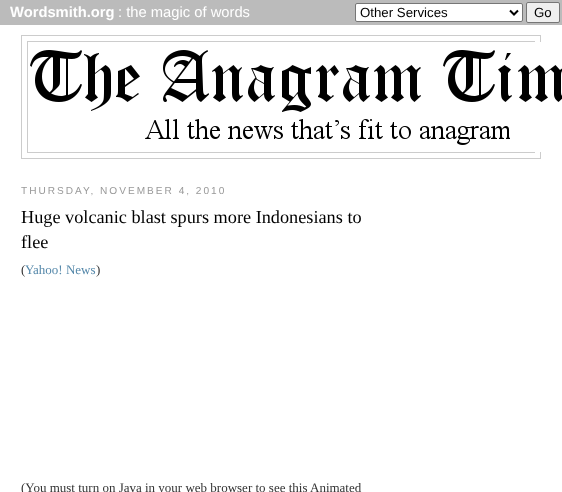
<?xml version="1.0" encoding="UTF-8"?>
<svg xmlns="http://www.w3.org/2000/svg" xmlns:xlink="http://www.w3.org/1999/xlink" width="562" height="492">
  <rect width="100%" height="100%" fill="#ffffff" />
  <rect width="562" height="25" fill="#bbbbbb" />
  <rect x="355.5" y="3.5" width="167" height="18" rx="1.5" fill="#ffffff" stroke="#767676" />
  <path d="M 510 10.5 l 4 4 l 4 -4" fill="none" stroke="#000000" stroke-width="2" />
  <rect x="526.5" y="2.5" width="33" height="20" rx="1.5" fill="#efefef" stroke="#767676" />
  <rect x="21.5" y="35.5" width="519" height="123" fill="none" stroke="#cccccc" />
  <rect x="27.5" y="41.5" width="507" height="111" fill="none" stroke="#cccccc" />
  <image x="30" y="42" width="532" height="110" xlink:href="image1.png" />
  <text x="10" y="17" style="font-family: Liberation Sans; font-size: 14.75px; font-weight: bold; fill: #ffffff">Wordsmith.org</text>
  <text x="118" y="17" style="font-family: Liberation Sans; font-size: 14.75px; fill: #ffffff">: the magic of words</text>
  <text x="360" y="17" style="font-family: Liberation Sans; font-size: 13.25px; fill: #000000">Other Services</text>
  <text x="534" y="17" style="font-family: Liberation Sans; font-size: 13.25px; fill: #000000">Go</text>
  <text x="21" y="194" style="font-family: Liberation Sans; font-size: 10.1px; letter-spacing: 2px; fill: #999999">THURSDAY, NOVEMBER 4, 2010</text>
  <text x="21" y="223" style="font-family: Liberation Serif; font-size: 18.25px; fill: #000000">Huge volcanic blast spurs more Indonesians to</text>
  <text x="21" y="248" style="font-family: Liberation Serif; font-size: 18.25px; fill: #000000">flee</text>
  <text x="21" y="274" style="font-family: Liberation Serif; font-size: 13px; fill: #333333">(</text>
  <text x="25" y="274" style="font-family: Liberation Serif; font-size: 13px; fill: #5588aa">Yahoo! News</text>
  <text x="96" y="274" style="font-family: Liberation Serif; font-size: 13px; fill: #333333">)</text>
  <text x="21" y="492" style="font-family: Liberation Serif; font-size: 13px; fill: #333333">(You must turn on Java in your web browser to see this Animated</text>
</svg>
